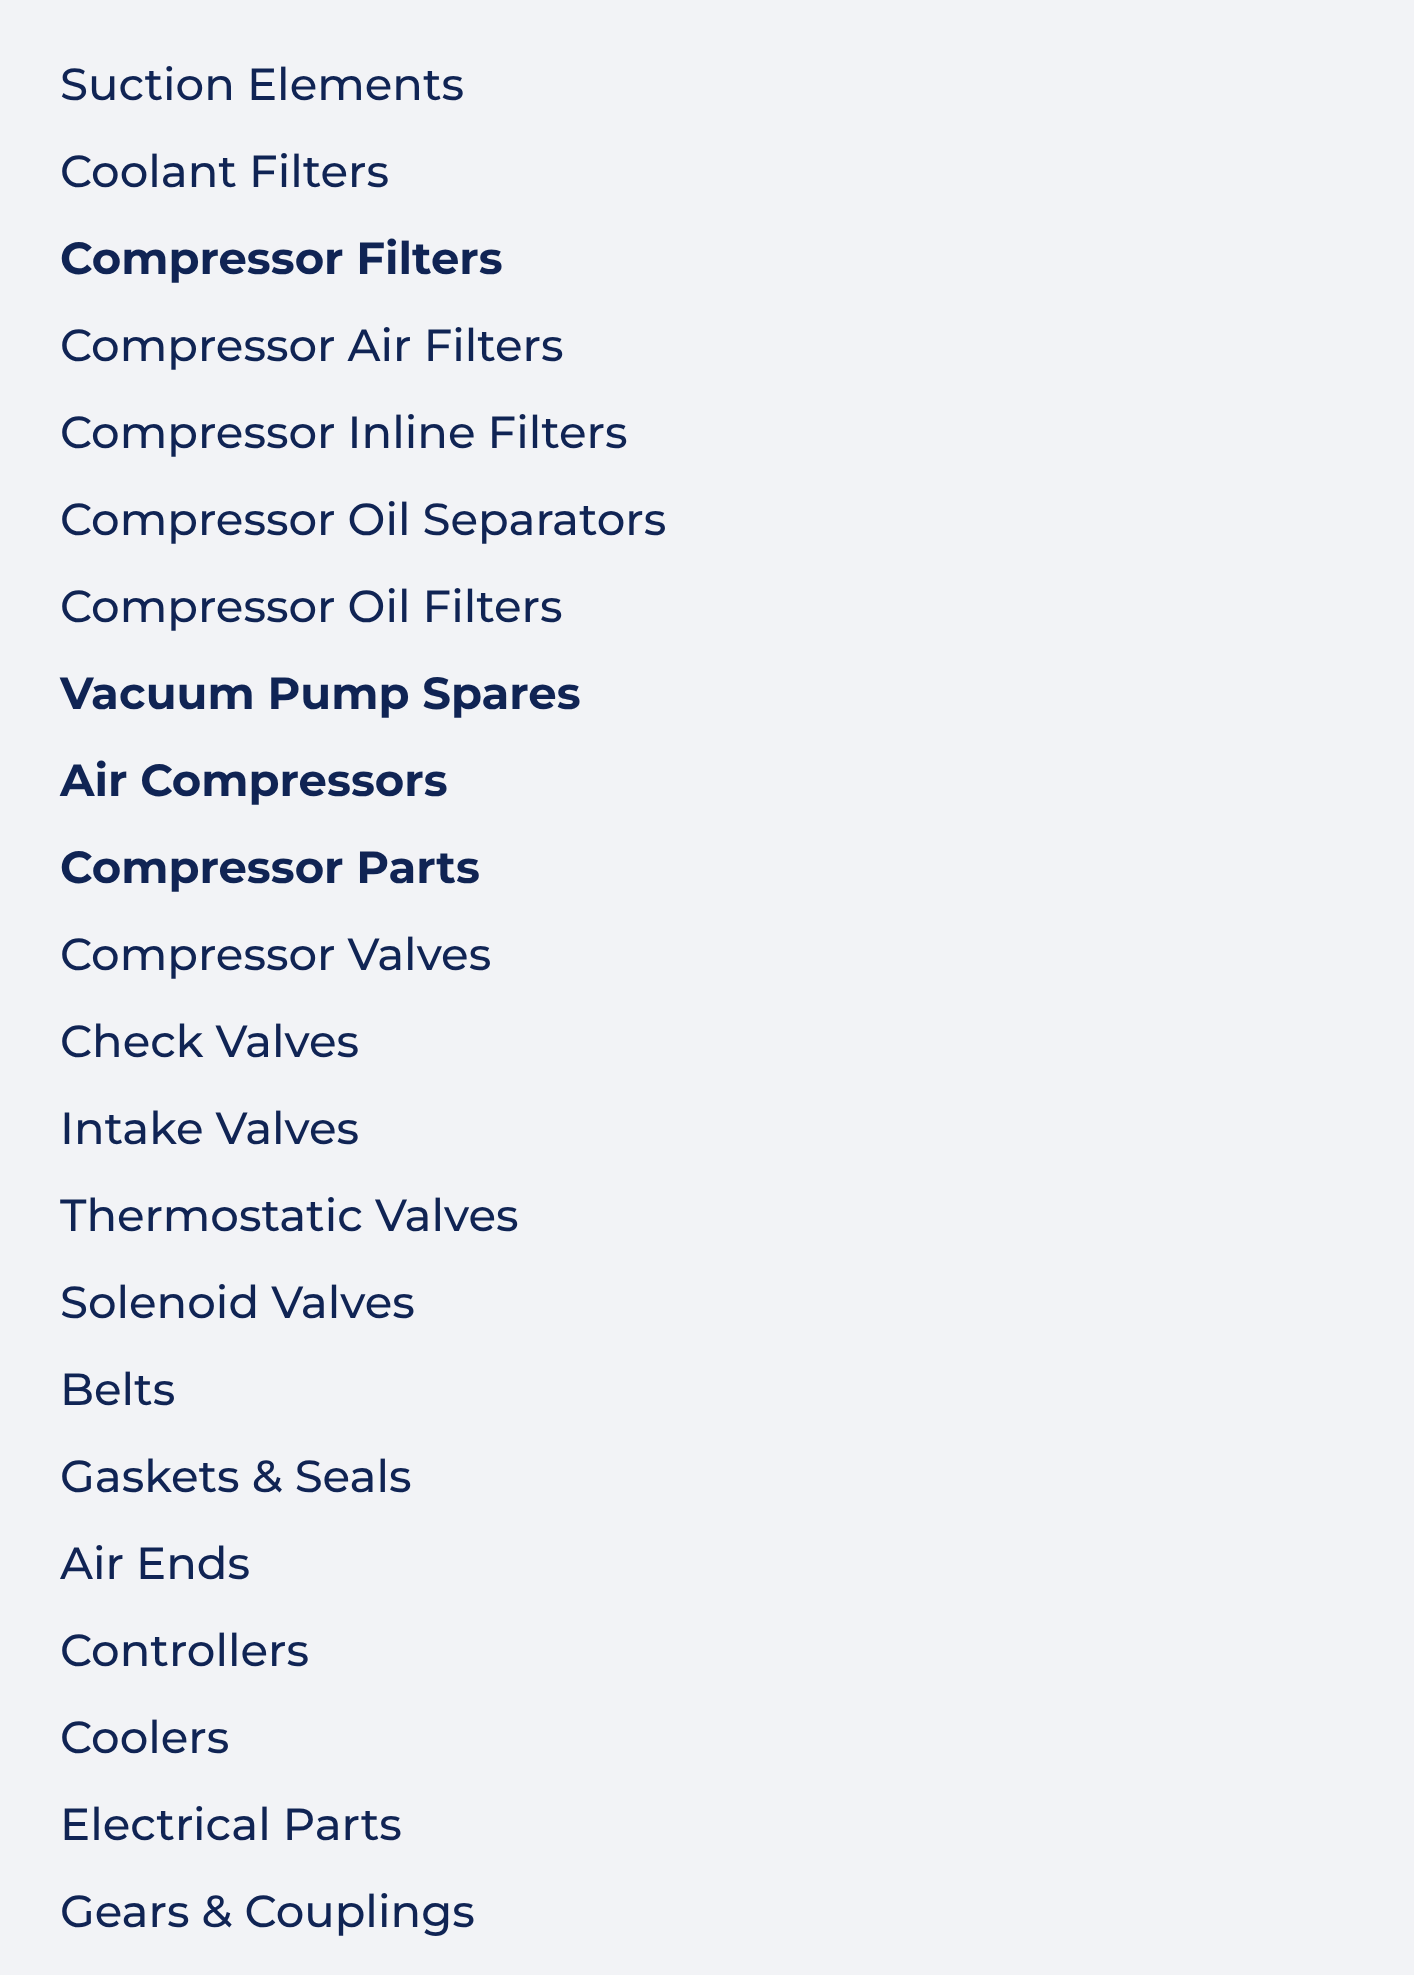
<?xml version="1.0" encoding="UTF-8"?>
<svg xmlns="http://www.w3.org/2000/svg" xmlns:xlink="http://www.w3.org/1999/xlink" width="1414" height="1975">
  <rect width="100%" height="100%" fill="#f2f3f6" />
  <text x="60" y="100" style="font-family: Montserrat; font-size: 45px; font-weight: 500; fill: #102454">Suction Elements</text>
  <text x="60" y="187" style="font-family: Montserrat; font-size: 45px; font-weight: 500; fill: #102454">Coolant Filters</text>
  <text x="60" y="274" style="font-family: Montserrat; font-size: 45px; font-weight: bold; fill: #102454">Compressor Filters</text>
  <text x="60" y="361" style="font-family: Montserrat; font-size: 45px; font-weight: 500; fill: #102454">Compressor Air Filters</text>
  <text x="60" y="448" style="font-family: Montserrat; font-size: 45px; font-weight: 500; fill: #102454">Compressor Inline Filters</text>
  <text x="60" y="535" style="font-family: Montserrat; font-size: 45px; font-weight: 500; fill: #102454">Compressor Oil Separators</text>
  <text x="60" y="622" style="font-family: Montserrat; font-size: 45px; font-weight: 500; fill: #102454">Compressor Oil Filters</text>
  <text x="60" y="709" style="font-family: Montserrat; font-size: 45px; font-weight: bold; fill: #102454">Vacuum Pump Spares</text>
  <text x="60" y="796" style="font-family: Montserrat; font-size: 45px; font-weight: bold; fill: #102454">Air Compressors</text>
  <text x="60" y="883" style="font-family: Montserrat; font-size: 45px; font-weight: bold; fill: #102454">Compressor Parts</text>
  <text x="60" y="970" style="font-family: Montserrat; font-size: 45px; font-weight: 500; fill: #102454">Compressor Valves</text>
  <text x="60" y="1057" style="font-family: Montserrat; font-size: 45px; font-weight: 500; fill: #102454">Check Valves</text>
  <text x="60" y="1144" style="font-family: Montserrat; font-size: 45px; font-weight: 500; fill: #102454">Intake Valves</text>
  <text x="60" y="1231" style="font-family: Montserrat; font-size: 45px; font-weight: 500; fill: #102454">Thermostatic Valves</text>
  <text x="60" y="1318" style="font-family: Montserrat; font-size: 45px; font-weight: 500; fill: #102454">Solenoid Valves</text>
  <text x="60" y="1405" style="font-family: Montserrat; font-size: 45px; font-weight: 500; fill: #102454">Belts</text>
  <text x="60" y="1492" style="font-family: Montserrat; font-size: 45px; font-weight: 500; fill: #102454">Gaskets &amp; Seals</text>
  <text x="60" y="1579" style="font-family: Montserrat; font-size: 45px; font-weight: 500; fill: #102454">Air Ends</text>
  <text x="60" y="1666" style="font-family: Montserrat; font-size: 45px; font-weight: 500; fill: #102454">Controllers</text>
  <text x="60" y="1753" style="font-family: Montserrat; font-size: 45px; font-weight: 500; fill: #102454">Coolers</text>
  <text x="60" y="1840" style="font-family: Montserrat; font-size: 45px; font-weight: 500; fill: #102454">Electrical Parts</text>
  <text x="60" y="1927" style="font-family: Montserrat; font-size: 45px; font-weight: 500; fill: #102454">Gears &amp; Couplings</text>
</svg>
